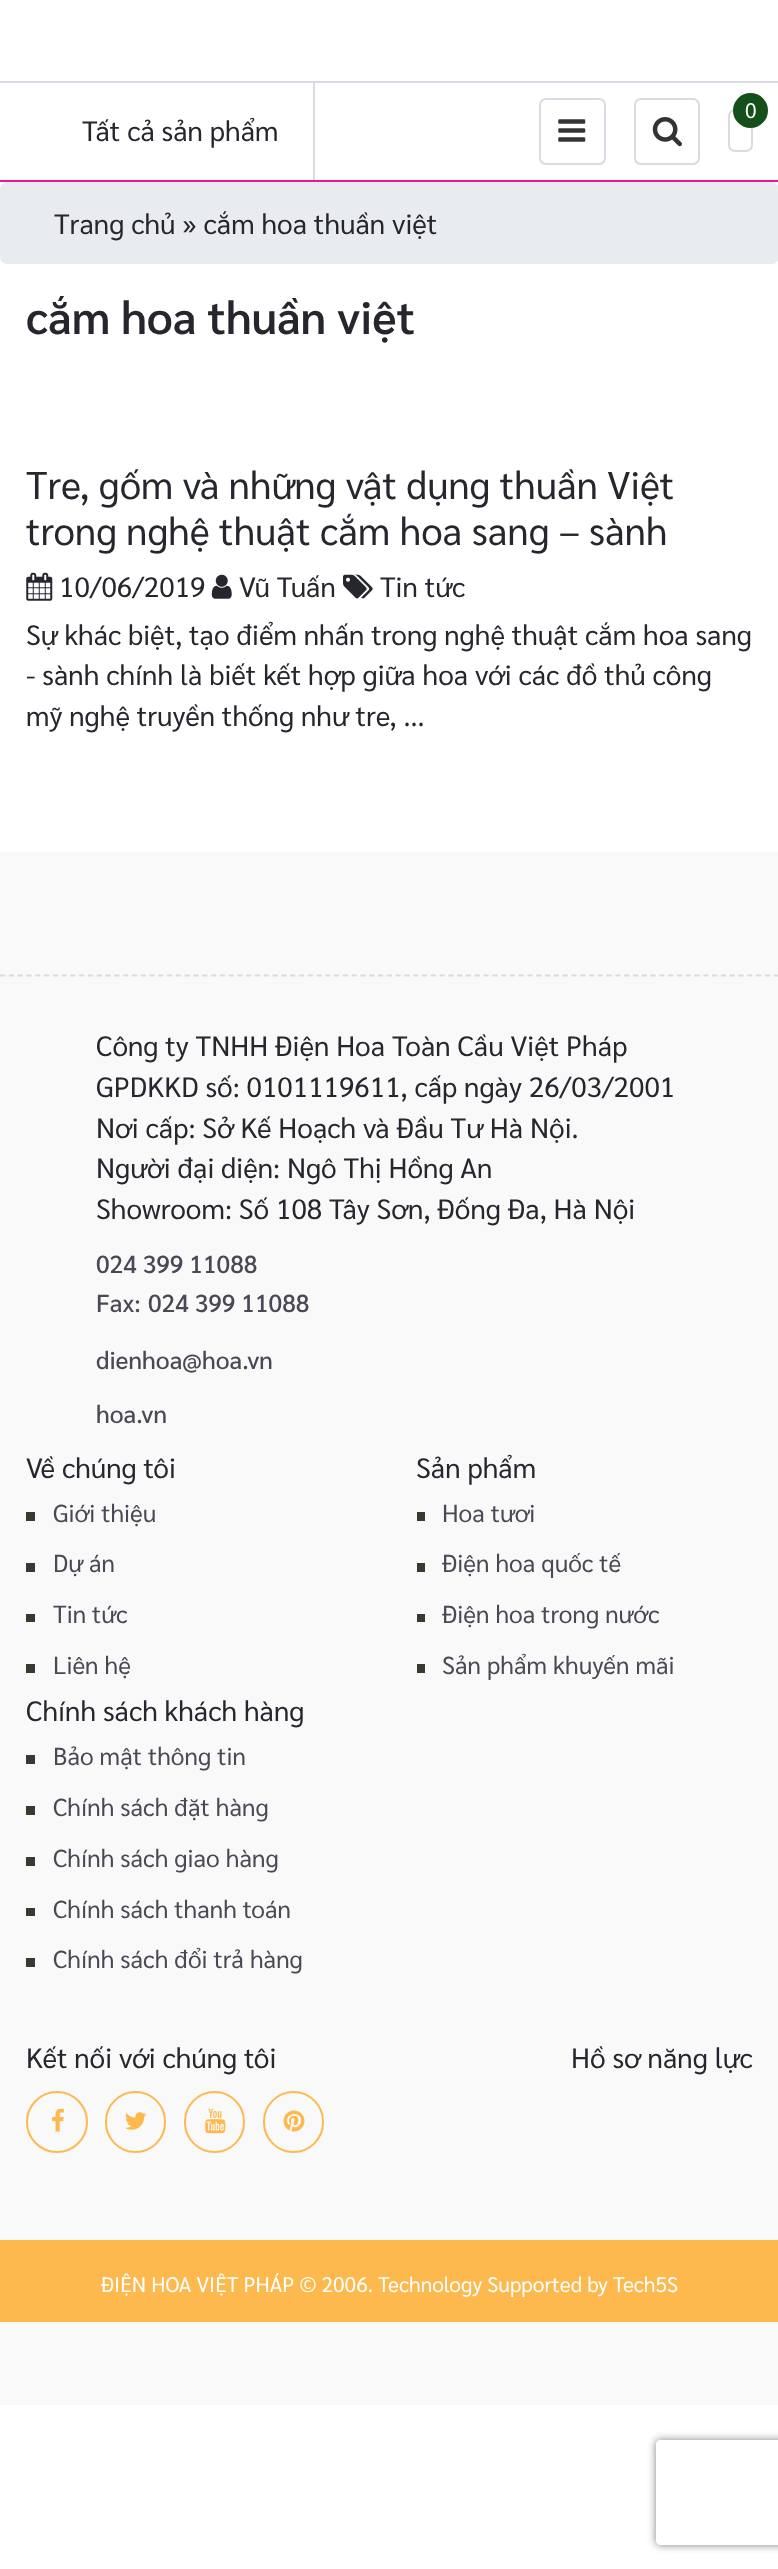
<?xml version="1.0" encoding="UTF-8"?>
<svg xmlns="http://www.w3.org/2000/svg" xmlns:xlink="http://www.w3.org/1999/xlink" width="778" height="2569">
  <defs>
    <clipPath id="clip1"><path d="M 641 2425 h 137 v 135 h -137 z m 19 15 h 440 c 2 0 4 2 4 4 v 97 c 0 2 -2 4 -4 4 h -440 c -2 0 -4 -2 -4 -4 v -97 c 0 -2 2 -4 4 -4 z" clip-rule="evenodd" /></clipPath>
  </defs>
  <rect width="100%" height="100%" fill="#ffffff" />
  <rect y="81" width="778" height="2" fill="#dadae5" />
  <rect y="180" width="778" height="2" fill="#ef1496" />
  <rect x="540" y="99" width="65" height="65" rx="6" fill="none" stroke="#dadae5" stroke-width="2" />
  <image x="558" y="119" width="28" height="23" xlink:href="image1.png" />
  <rect x="635" y="99" width="64" height="65" rx="6" fill="none" stroke="#dadae5" stroke-width="2" />
  <image x="652" y="117" width="30" height="30" xlink:href="image2.png" />
  <rect x="729" y="110" width="23" height="41" rx="6" fill="none" stroke="#dadae5" stroke-width="2" />
  <circle cx="750.5" cy="110.5" r="17.5" fill="#15501b" />
  <rect x="313" y="82" width="2" height="98" fill="#dadae5" />
  <rect y="182" width="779" height="82" rx="7" fill="#e9ecef" />
  <image x="26" y="572" width="27" height="29" xlink:href="image3.png" />
  <image x="211" y="574" width="21" height="25" xlink:href="image4.png" />
  <image x="343" y="574" width="30" height="25" xlink:href="image5.png" />
  <rect y="852" width="778" height="1553" fill="#f9f9f9" />
  <path d="M 0 975.5 h 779" fill="none" stroke="#dadae5" stroke-width="1.8" stroke-dasharray="5.25 3.54" />
  <rect x="26" y="1512" width="9" height="9" fill="#373a31" />
  <rect x="26" y="1563" width="9" height="9" fill="#373a31" />
  <rect x="26" y="1614" width="9" height="8" fill="#373a31" />
  <rect x="26" y="1664" width="9" height="9" fill="#373a31" />
  <rect x="417" y="1512" width="8" height="9" fill="#373a31" />
  <rect x="417" y="1563" width="8" height="9" fill="#373a31" />
  <rect x="417" y="1614" width="8" height="8" fill="#373a31" />
  <rect x="417" y="1664" width="8" height="9" fill="#373a31" />
  <rect x="26" y="1755" width="9" height="9" fill="#373a31" />
  <rect x="26" y="1806" width="9" height="9" fill="#373a31" />
  <rect x="26" y="1857" width="9" height="9" fill="#373a31" />
  <rect x="26" y="1908" width="9" height="8" fill="#373a31" />
  <rect x="26" y="1958" width="9" height="9" fill="#373a31" />
  <circle cx="57" cy="2122" r="30" fill="none" stroke="#feb94e" stroke-width="2" />
  <image x="52" y="2108" width="12" height="24" xlink:href="image6.png" />
  <rect x="106" y="2092" width="59" height="60" rx="29.5" fill="none" stroke="#feb94e" stroke-width="2" />
  <image x="125" y="2112" width="22" height="18" xlink:href="image7.png" />
  <rect x="185" y="2092" width="59" height="60" rx="29.5" fill="none" stroke="#feb94e" stroke-width="2" />
  <image x="205" y="2108" width="21" height="26" xlink:href="image8.png" />
  <rect x="264" y="2092" width="59" height="60" rx="29.5" fill="none" stroke="#feb94e" stroke-width="2" />
  <image x="283" y="2110" width="22" height="22" xlink:href="image9.png" />
  <rect y="2240" width="778" height="82" fill="#feb94e" />
  <g clip-path="url(#clip1)">
    <rect x="656" y="2440" width="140" height="105" rx="4" fill="#808080" filter="blur(4.5px)" />
  </g>
  <text x="745" y="118" style="font-family: Sarabun; font-size: 21px; fill: #ffffff">0</text>
  <text x="82" y="141" style="font-family: Sarabun; font-size: 28px; fill: #26262e">Tất cả sản phẩm</text>
  <text x="54" y="234" style="font-family: Sarabun; font-size: 28px; fill: #26262e">Trang chủ » cắm hoa thuần việt</text>
  <text x="26" y="334" style="font-family: Sarabun; font-size: 45.5px; font-weight: 600; fill: #26262e">cắm hoa thuần việt</text>
  <text x="26" y="499" style="font-family: Sarabun; font-size: 38.5px; fill: #26262e">Tre, gốm và những vật dụng thuần Việt</text>
  <text x="26" y="545" style="font-family: Sarabun; font-size: 38.5px; fill: #26262e">trong nghệ thuật cắm hoa sang – sành</text>
  <text x="59" y="597" style="font-family: Sarabun; font-size: 28px; fill: #26262e">10/06/2019</text>
  <text x="239" y="597" style="font-family: Sarabun; font-size: 28px; fill: #26262e">Vũ Tuấn</text>
  <text x="380" y="597" style="font-family: Sarabun; font-size: 28px; fill: #26262e">Tin tức</text>
  <text x="26" y="645" style="font-family: Sarabun; font-size: 28px; fill: #26262e">Sự khác biệt, tạo điểm nhấn trong nghệ thuật cắm hoa sang</text>
  <text x="26" y="685" style="font-family: Sarabun; font-size: 28px; fill: #26262e">- sành chính là biết kết hợp giữa hoa với các đồ thủ công</text>
  <text x="26" y="726" style="font-family: Sarabun; font-size: 28px; fill: #26262e">mỹ nghệ truyền thống như tre, ...</text>
  <text x="96" y="1056" style="font-family: Sarabun; font-size: 28px; fill: #26262e">Công ty TNHH Điện Hoa Toàn Cầu Việt Pháp</text>
  <text x="96" y="1097" style="font-family: Sarabun; font-size: 28px; fill: #26262e">GPDKKD số: 0101119611, cấp ngày 26/03/2001</text>
  <text x="96" y="1138" style="font-family: Sarabun; font-size: 28px; fill: #26262e">Nơi cấp: Sở Kế Hoạch và Đầu Tư Hà Nội.</text>
  <text x="96" y="1178" style="font-family: Sarabun; font-size: 28px; fill: #26262e">Người đại diện: Ngô Thị Hồng An</text>
  <text x="96" y="1219" style="font-family: Sarabun; font-size: 28px; fill: #26262e">Showroom: Số 108 Tây Sơn, Đống Đa, Hà Nội</text>
  <text x="96" y="1273" style="font-family: Sarabun; font-size: 24.5px; font-weight: 500; fill: #484954">024 399 11088</text>
  <text x="96" y="1312" style="font-family: Sarabun; font-size: 24.5px; font-weight: 500; fill: #484954">Fax:</text>
  <text x="148" y="1312" style="font-family: Sarabun; font-size: 24.5px; font-weight: 500; fill: #484954">024 399 11088</text>
  <text x="96" y="1369" style="font-family: Sarabun; font-size: 24.5px; font-weight: 500; fill: #484954">dienhoa@hoa.vn</text>
  <text x="96" y="1423" style="font-family: Sarabun; font-size: 24.5px; font-weight: 500; fill: #484954">hoa.vn</text>
  <text x="26" y="1478" style="font-family: Sarabun; font-size: 28px; fill: #26262e">Về chúng tôi</text>
  <text x="53" y="1522" style="font-family: Sarabun; font-size: 24.5px; fill: #484954">Giới thiệu</text>
  <text x="53" y="1572" style="font-family: Sarabun; font-size: 24.5px; fill: #484954">Dự án</text>
  <text x="53" y="1623" style="font-family: Sarabun; font-size: 24.5px; fill: #484954">Tin tức</text>
  <text x="53" y="1674" style="font-family: Sarabun; font-size: 24.5px; fill: #484954">Liên hệ</text>
  <text x="416" y="1478" style="font-family: Sarabun; font-size: 28px; fill: #26262e">Sản phẩm</text>
  <text x="442" y="1522" style="font-family: Sarabun; font-size: 24.5px; fill: #484954">Hoa tươi</text>
  <text x="442" y="1572" style="font-family: Sarabun; font-size: 24.5px; fill: #484954">Điện hoa quốc tế</text>
  <text x="442" y="1623" style="font-family: Sarabun; font-size: 24.5px; fill: #484954">Điện hoa trong nước</text>
  <text x="442" y="1674" style="font-family: Sarabun; font-size: 24.5px; fill: #484954">Sản phẩm khuyến mãi</text>
  <text x="26" y="1721" style="font-family: Sarabun; font-size: 28px; fill: #26262e">Chính sách khách hàng</text>
  <text x="53" y="1765" style="font-family: Sarabun; font-size: 24.5px; fill: #484954">Bảo mật thông tin</text>
  <text x="53" y="1816" style="font-family: Sarabun; font-size: 24.5px; fill: #484954">Chính sách đặt hàng</text>
  <text x="53" y="1867" style="font-family: Sarabun; font-size: 24.5px; fill: #484954">Chính sách giao hàng</text>
  <text x="53" y="1918" style="font-family: Sarabun; font-size: 24.5px; fill: #484954">Chính sách thanh toán</text>
  <text x="53" y="1968" style="font-family: Sarabun; font-size: 24.5px; fill: #484954">Chính sách đổi trả hàng</text>
  <text x="26" y="2068" style="font-family: Sarabun; font-size: 28px; fill: #26262e">Kết nối với chúng tôi</text>
  <text x="571" y="2068" style="font-family: Sarabun; font-size: 28px; fill: #26262e">Hồ sơ năng lực</text>
  <text x="101" y="2292" style="font-family: Sarabun; font-size: 21px; fill: #ffffff">ĐIỆN HOA VIỆT PHÁP © 2006. Technology Supported by Tech5S</text>
</svg>
